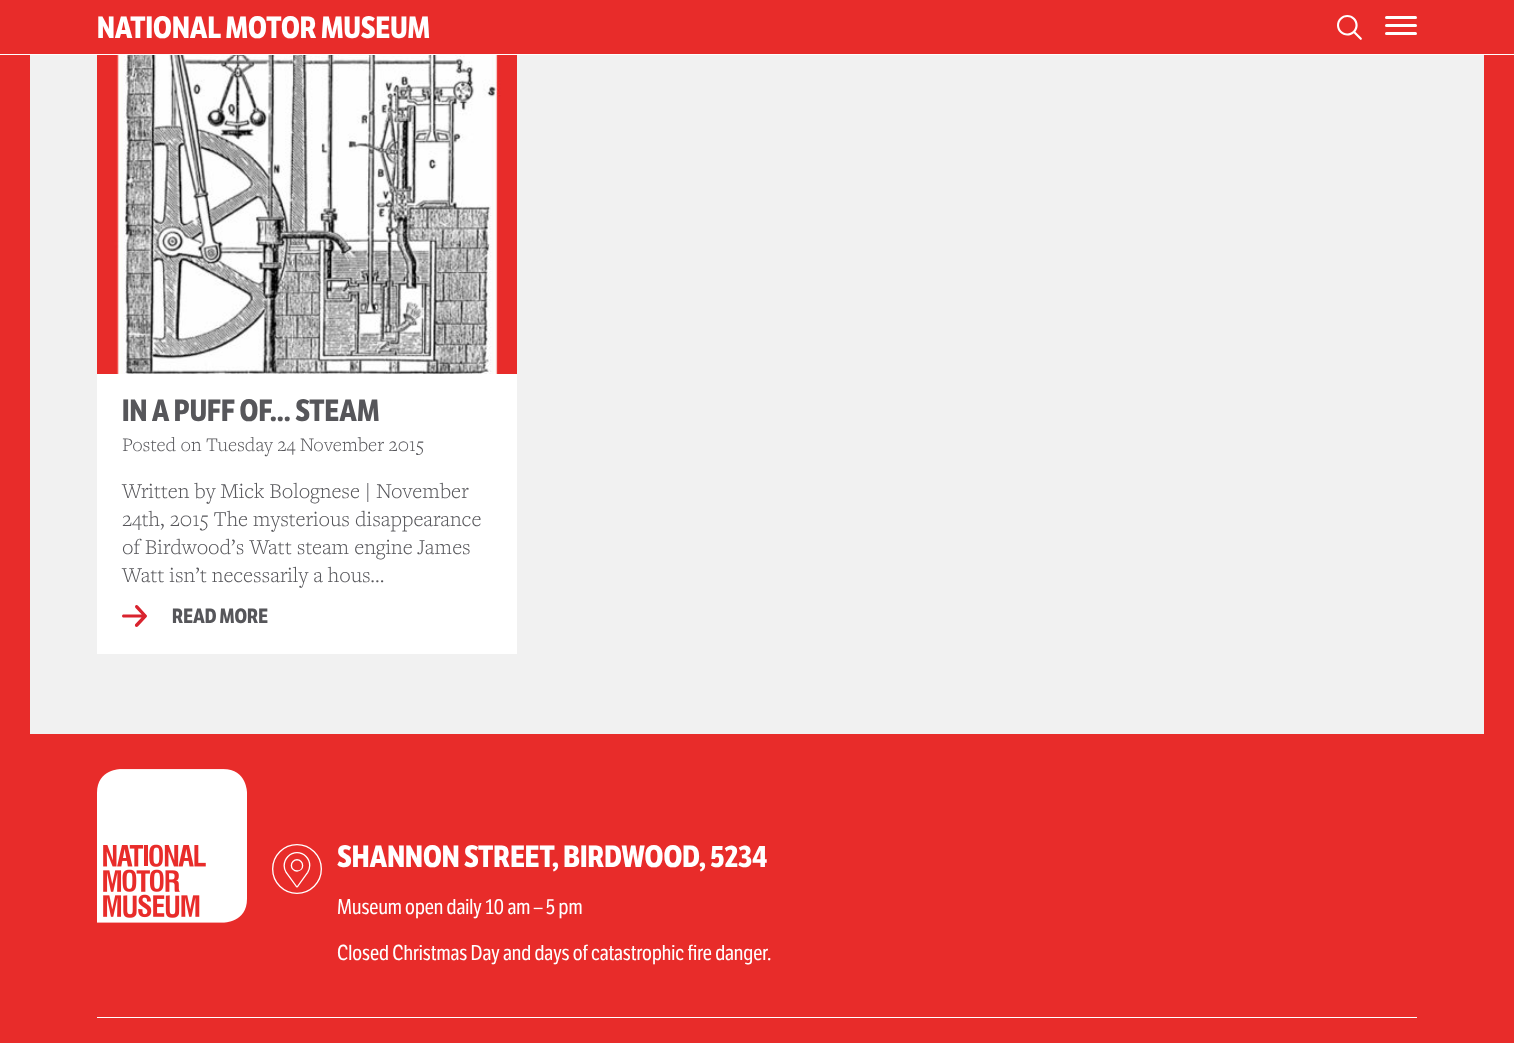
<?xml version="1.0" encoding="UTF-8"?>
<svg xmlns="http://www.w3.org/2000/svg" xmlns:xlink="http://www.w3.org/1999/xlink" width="1514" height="1043">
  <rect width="100%" height="100%" fill="#f1f1f1" />
  <rect x="1484" y="55" width="30" height="988" fill="#e82c2a" />
  <rect y="55" width="30" height="988" fill="#e82c2a" />
  <rect width="1514" height="54" fill="#e82c2a" />
  <rect y="54" width="1514" height="1" fill="#ffffff" />
  <image x="1337" y="15" width="25" height="25" xlink:href="image1.png" />
  <rect x="1385" y="16" width="32" height="3" rx="1.5" fill="#ffffff" />
  <rect x="1385" y="24" width="32" height="3" rx="1.5" fill="#ffffff" />
  <rect x="1385" y="32" width="32" height="3" rx="1.5" fill="#ffffff" />
  <image x="97" y="55" width="420" height="319" xlink:href="image2.png" />
  <rect x="97" y="374" width="420" height="280" fill="#ffffff" />
  <image x="122" y="605" width="25" height="22" xlink:href="image3.png" />
  <rect x="30" y="734" width="1454" height="309" fill="#e82c2a" />
  <image x="97" y="769" width="150" height="154" xlink:href="image4.png" />
  <image x="272" y="844" width="50" height="50" xlink:href="image5.png" />
  <rect x="97" y="1017" width="1320" height="1" fill="#ffffff" />
  <text x="97" y="38" style="font-family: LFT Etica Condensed; font-size: 30px; font-weight: bold; fill: #ffffff">NATIONAL MOTOR MUSEUM</text>
  <text x="122" y="421" style="font-family: LFT Etica Condensed; font-size: 30px; font-weight: bold; fill: #56565a">IN A PUFF OF… STEAM</text>
  <text x="122" y="451" style="font-family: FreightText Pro; font-size: 20px; font-weight: 300; fill: #56565a">Posted on Tuesday 24 November 2015</text>
  <text x="122" y="498" style="font-family: FreightText Pro; font-size: 22px; font-weight: 300; fill: #56565a">Written by Mick Bolognese | November</text>
  <text x="122" y="526" style="font-family: FreightText Pro; font-size: 22px; font-weight: 300; fill: #56565a">24th, 2015 The mysterious disappearance</text>
  <text x="122" y="554" style="font-family: FreightText Pro; font-size: 22px; font-weight: 300; fill: #56565a">of Birdwood’s Watt steam engine James</text>
  <text x="122" y="582" style="font-family: FreightText Pro; font-size: 22px; font-weight: 300; fill: #56565a">Watt isn’t necessarily a hous...</text>
  <text x="172" y="623" style="font-family: LFT Etica Condensed; font-size: 20px; font-weight: bold; fill: #56565a">READ MORE</text>
  <text x="337" y="867" style="font-family: LFT Etica Condensed; font-size: 30px; font-weight: bold; fill: #ffffff">SHANNON STREET, BIRDWOOD, 5234</text>
  <text x="337" y="914" style="font-family: LFT Etica Condensed; font-size: 21px; fill: #ffffff">Museum open daily 10 am – 5 pm</text>
  <text x="337" y="960" style="font-family: LFT Etica Condensed; font-size: 21px; fill: #ffffff">Closed Christmas Day and days of catastrophic fire danger.</text>
</svg>
